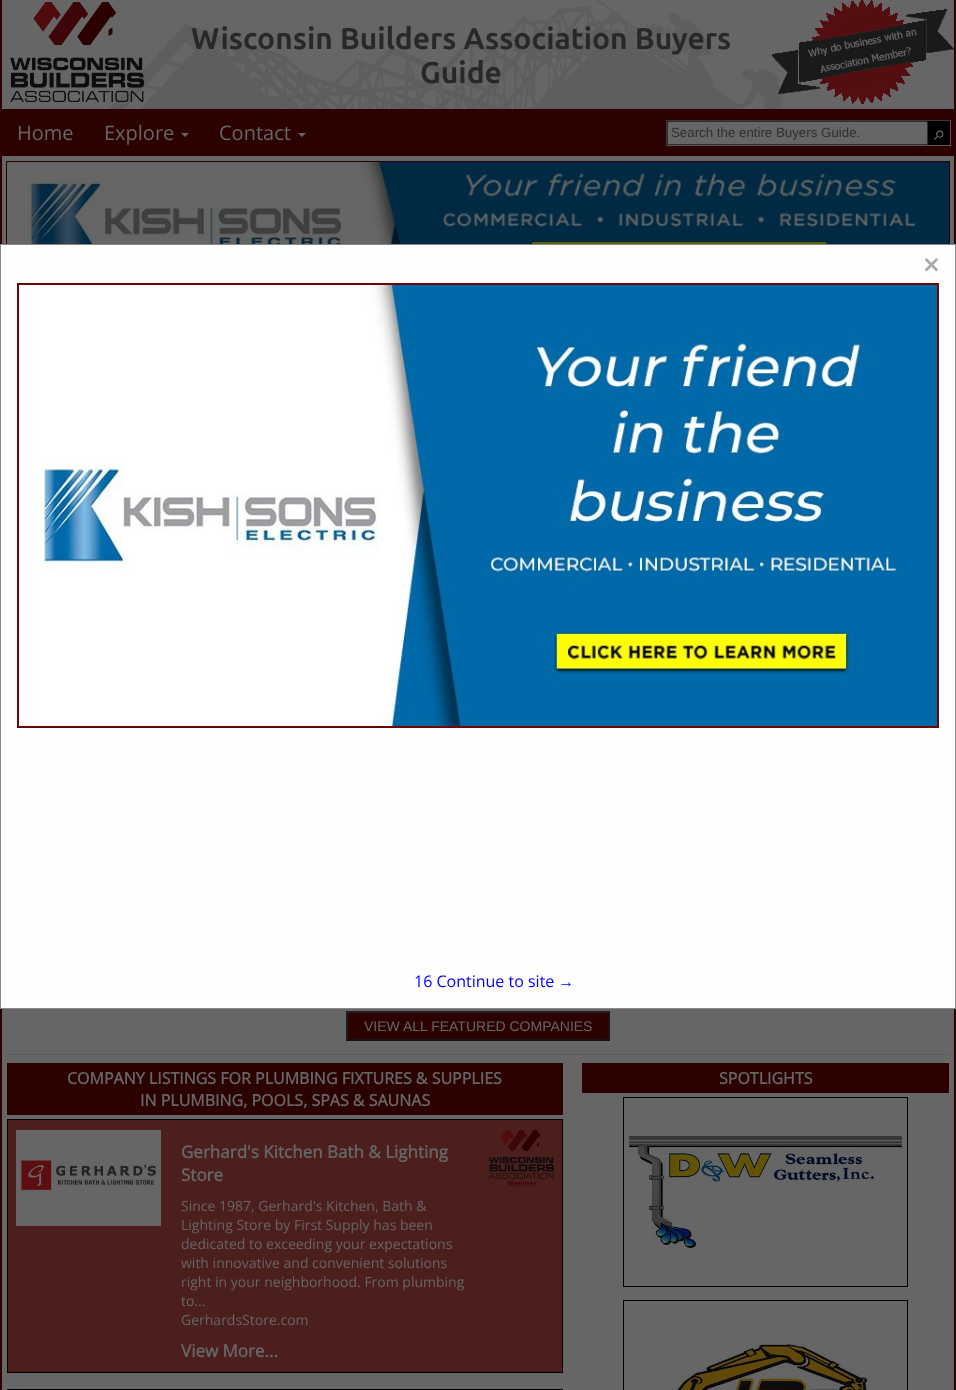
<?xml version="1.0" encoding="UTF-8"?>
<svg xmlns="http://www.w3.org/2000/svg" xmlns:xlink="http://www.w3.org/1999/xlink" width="956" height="1390">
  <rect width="100%" height="100%" fill="#666666" />
  <rect x="954" width="2" height="1390" fill="#2c0200" />
  <rect width="2" height="1390" fill="#2c0200" />
  <image x="109" y="0" width="673" height="109" xlink:href="image1.png" />
  <image x="10" y="2" width="134" height="100" xlink:href="image2.png" />
  <image x="771" y="0" width="183" height="104" xlink:href="image3.png" />
  <rect x="2" y="109" width="952" height="47" fill="#2c0200" />
  <path d="M 181 133 h 8 l -4 4 z" fill="#666666" />
  <path d="M 298 133 h 8 l -4 4 z" fill="#666666" />
  <rect x="666" y="120" width="285" height="1" fill="#393939" />
  <rect x="950" y="120" width="1" height="26" fill="#565656" />
  <rect x="666" y="145" width="285" height="1" fill="#565656" />
  <rect x="666" y="120" width="1" height="26" fill="#393939" />
  <rect x="667.5" y="121.5" width="260" height="23" rx="1.5" fill="#666666" stroke="#2f2f2f" />
  <rect x="928" y="121" width="22" height="24" fill="#000000" />
  <rect x="6.5" y="161.5" width="943" height="125" fill="none" stroke="#2c0200" />
  <image x="22" y="162" width="927" height="82" xlink:href="image4.png" />
  <rect x="0.5" y="244.5" width="955" height="764" fill="#fefefe" stroke="#888888" />
  <rect x="18" y="284" width="920" height="443" fill="none" stroke="#6d0600" stroke-width="2" />
  <image x="35" y="285" width="902" height="441" xlink:href="image5.png" />
  <rect x="7" y="1054" width="942" height="1" fill="#5b5b5b" />
  <rect x="346" y="1011" width="264" height="30" fill="#2c0200" />
  <path d="M 346 1011 h 264 l -2 2 h -260 z" fill="#1e1f20" />
  <path d="M 610 1011 v 30 l -2 -2 v -26 z" fill="#141415" />
  <path d="M 610 1041 h -264 l 2 -2 h 260 z" fill="#141415" />
  <path d="M 346 1041 v -30 l 2 2 v 26 z" fill="#1e1f20" />
  <rect x="7" y="1063" width="556" height="52" fill="#2c0200" />
  <rect x="7.5" y="1119.5" width="555" height="253" fill="#4c1f1d" stroke="#000000" />
  <image x="16" y="1130" width="145" height="96" xlink:href="image6.png" />
  <image x="489" y="1130" width="65" height="57" xlink:href="image7.png" />
  <rect x="7.5" y="1389.5" width="555" height="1" fill="none" stroke="#000000" />
  <rect x="582" y="1063" width="367" height="30" fill="#2c0200" />
  <rect x="623.5" y="1097.5" width="284" height="189" fill="none" stroke="#000000" />
  <image x="629" y="1136" width="274" height="113" xlink:href="image8.png" />
  <rect x="623.5" y="1300.5" width="284" height="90" fill="none" stroke="#000000" />
  <image x="671" y="1339" width="199" height="51" xlink:href="image9.png" />
  <text x="191" y="49" style="font-family: Ubuntu; font-size: 30px; font-weight: bold; fill: #282828">Wisconsin Builders Association Buyers</text>
  <text x="420" y="83" style="font-family: Ubuntu; font-size: 30px; font-weight: bold; fill: #282828">Guide</text>
  <text x="17" y="140" style="font-family: Open Sans; font-size: 20px; fill: #666666">Home</text>
  <text x="104" y="140" style="font-family: Open Sans; font-size: 20px; fill: #666666">Explore</text>
  <text x="219" y="140" style="font-family: Open Sans; font-size: 20px; fill: #666666">Contact</text>
  <text x="671" y="137" style="font-family: Liberation Sans; font-size: 13.3px; fill: #2f2f2f">Search the entire Buyers Guide.</text>
  <text x="932" y="135" transform="rotate(45 932 135)" style="font-family: DejaVu Sans; font-size: 13.3px; fill: #666666">⚲</text>
  <text x="923" y="275" style="font-family: Open Sans; font-size: 28px; font-weight: bold; fill: #aaaaaa">×</text>
  <text x="414" y="987" style="font-family: Open Sans; font-size: 16px; fill: #0000ff">16 Continue to site</text>
  <text x="558" y="987" style="font-family: Liberation Sans; font-size: 16px; fill: #0000ff">→</text>
  <text x="364" y="1031" style="font-family: Liberation Sans; font-size: 14px; fill: #666666">VIEW ALL FEATURED COMPANIES</text>
  <text x="67" y="1084" style="font-family: Open Sans; font-size: 16px; font-weight: bold; fill: #666666">COMPANY LISTINGS FOR PLUMBING FIXTURES &amp; SUPPLIES</text>
  <text x="140" y="1106" style="font-family: Open Sans; font-size: 16px; font-weight: bold; fill: #666666">IN PLUMBING, POOLS, SPAS &amp; SAUNAS</text>
  <text x="181" y="1158" style="font-family: Open Sans; font-size: 17px; font-weight: bold; fill: #666666">Gerhard's Kitchen Bath &amp; Lighting</text>
  <text x="181" y="1181" style="font-family: Open Sans; font-size: 17px; font-weight: bold; fill: #666666">Store</text>
  <text x="181" y="1211" style="font-family: Open Sans; font-size: 14px; fill: #666666">Since 1987, Gerhard's Kitchen, Bath &amp;</text>
  <text x="181" y="1230" style="font-family: Open Sans; font-size: 14px; fill: #666666">Lighting Store by First Supply has been</text>
  <text x="181" y="1249" style="font-family: Open Sans; font-size: 14px; fill: #666666">dedicated to exceeding your expectations</text>
  <text x="181" y="1268" style="font-family: Open Sans; font-size: 14px; fill: #666666">with innovative and convenient solutions</text>
  <text x="181" y="1287" style="font-family: Open Sans; font-size: 14px; fill: #666666">right in your neighborhood. From plumbing</text>
  <text x="181" y="1306" style="font-family: Open Sans; font-size: 14px; fill: #666666">to...</text>
  <text x="181" y="1325" style="font-family: Open Sans; font-size: 14px; fill: #666666">GerhardsStore.com</text>
  <text x="181" y="1357" style="font-family: Open Sans; font-size: 17px; font-weight: bold; fill: #666666">View More...</text>
  <text x="719" y="1084" style="font-family: Open Sans; font-size: 16px; font-weight: bold; fill: #666666">SPOTLIGHTS</text>
</svg>
